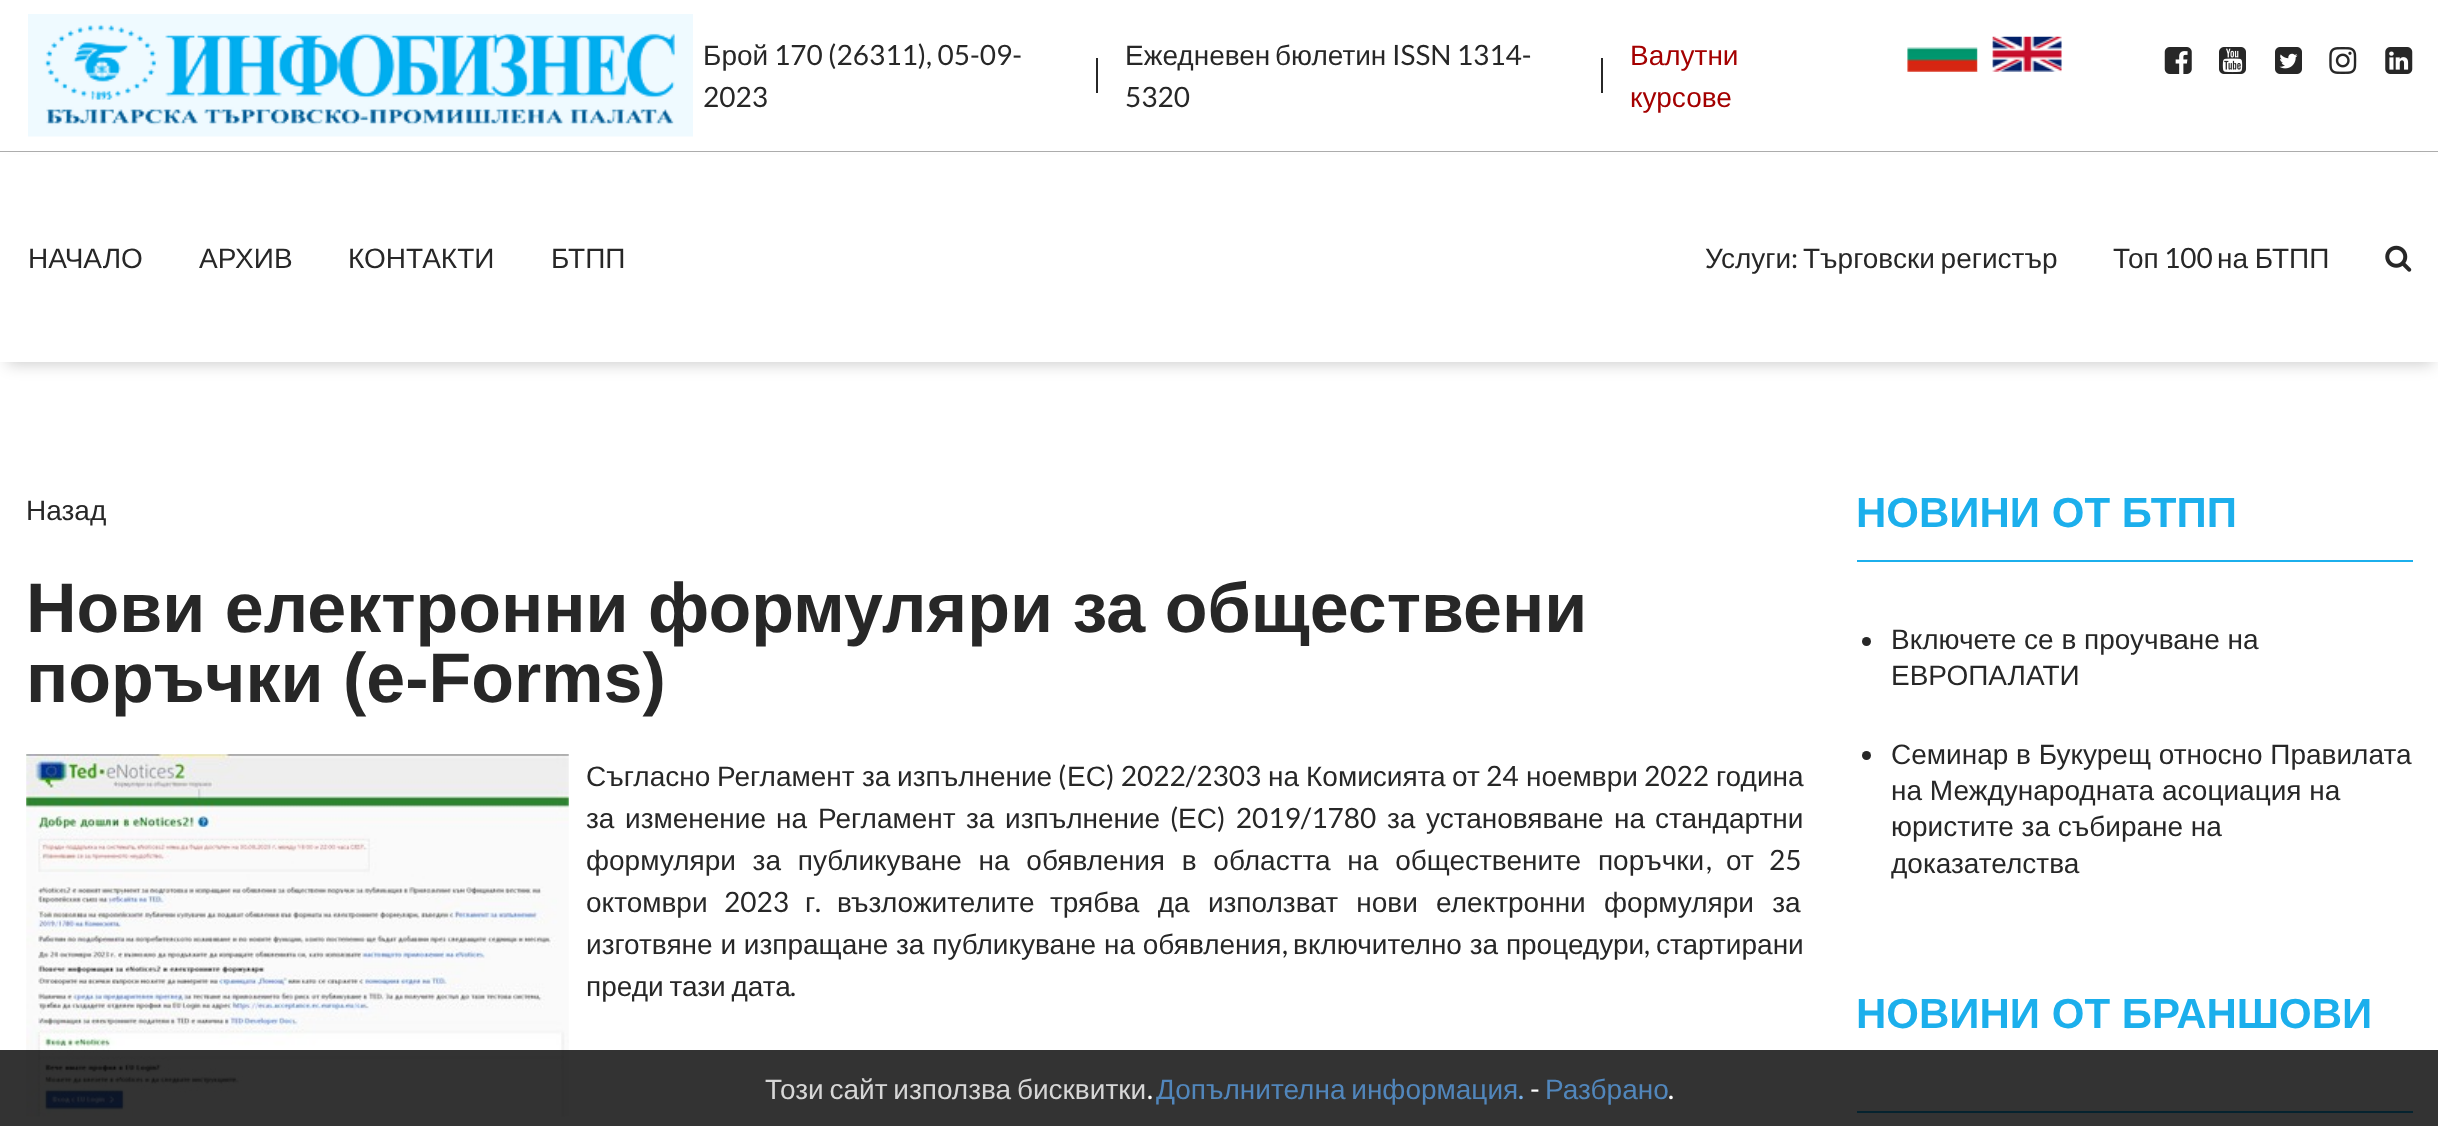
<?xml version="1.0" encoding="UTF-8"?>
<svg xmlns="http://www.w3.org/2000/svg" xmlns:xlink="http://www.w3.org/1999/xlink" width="2438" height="1126">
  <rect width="100%" height="100%" fill="#ffffff" />
  <rect y="151" width="2438" height="1" fill="#adadad" />
  <image x="28" y="14" width="665" height="123" xlink:href="image1.png" />
  <rect x="1096" y="58" width="2" height="35" fill="#272727" />
  <rect x="1601" y="58" width="2" height="35" fill="#272727" />
  <image x="1907" y="47" width="71" height="25" xlink:href="image2.png" />
  <image x="1977" y="36" width="85" height="36" xlink:href="image3.png" />
  <image x="2164" y="47" width="28" height="27" xlink:href="image4.png" />
  <image x="2219" y="47" width="27" height="27" xlink:href="image5.png" />
  <image x="2275" y="47" width="27" height="27" xlink:href="image6.png" />
  <image x="2329" y="47" width="28" height="27" xlink:href="image7.png" />
  <image x="2385" y="47" width="28" height="27" xlink:href="image8.png" />
  <rect x="7" y="168" width="2426" height="196" fill="#000000" fill-opacity="0.2" filter="blur(8px)" />
  <rect y="155" width="2438" height="207" fill="#ffffff" />
  <image x="2385" y="245" width="27" height="27" xlink:href="image9.png" />
  <image x="26" y="754" width="543" height="363" xlink:href="image10.png" />
  <rect x="1857" y="560" width="556" height="2" fill="#1cafec" />
  <circle cx="1866.5" cy="641.5" r="4.5" fill="#272727" />
  <circle cx="1866.5" cy="755.5" r="4.5" fill="#272727" />
  <rect x="1857" y="1111" width="556" height="2" fill="#1cafec" />
  <rect y="1050" width="2438" height="76" fill="#000000" fill-opacity="0.8" />
  <text x="703" y="65" style="font-family: Liberation Sans; font-size: 28px; fill: #272727">Брой</text>
  <text x="774" y="65" style="font-family: Lato; font-size: 28px; fill: #272727">170 (26311), 05-09-</text>
  <text x="703" y="107" style="font-family: Lato; font-size: 28px; fill: #272727">2023</text>
  <text x="1125" y="65" style="font-family: Liberation Sans; font-size: 28px; fill: #272727">Ежедневен</text>
  <text x="1275" y="65" style="font-family: Liberation Sans; font-size: 28px; fill: #272727">бюлетин</text>
  <text x="1392" y="65" style="font-family: Lato; font-size: 28px; fill: #272727">ISSN 1314-</text>
  <text x="1125" y="107" style="font-family: Lato; font-size: 28px; fill: #272727">5320</text>
  <text x="1630" y="65" style="font-family: Liberation Sans; font-size: 28px; fill: #a40000">Валутни</text>
  <text x="1630" y="107" style="font-family: Liberation Sans; font-size: 28px; fill: #a40000">курсове</text>
  <text x="28" y="268" style="font-family: Liberation Sans; font-size: 28px; fill: #272727">НАЧАЛО</text>
  <text x="199" y="268" style="font-family: Liberation Sans; font-size: 28px; fill: #272727">АРХИВ</text>
  <text x="348" y="268" style="font-family: Liberation Sans; font-size: 28px; fill: #272727">КОНТАКТИ</text>
  <text x="551" y="268" style="font-family: Liberation Sans; font-size: 28px; fill: #272727">БТПП</text>
  <text x="1705" y="268" style="font-family: Liberation Sans; font-size: 28px; fill: #272727">Услуги</text>
  <text x="1791" y="268" style="font-family: Lato; font-size: 28px; fill: #272727">:</text>
  <text x="1803" y="268" word-spacing="-2" style="font-family: Liberation Sans; font-size: 28px; fill: #272727">Търговски регистър</text>
  <text x="2113" y="268" style="font-family: Liberation Sans; font-size: 28px; fill: #272727">Топ</text>
  <text x="2164" y="268" style="font-family: Lato; font-size: 28px; fill: #272727">100</text>
  <text x="2217" y="268" word-spacing="-1" style="font-family: Liberation Sans; font-size: 28px; fill: #272727">на БТПП</text>
  <text x="26" y="520" style="font-family: Liberation Sans; font-size: 28px; fill: #272727">Назад</text>
  <text x="26" y="632" style="font-family: Arimo; font-size: 70px; font-weight: bold; fill: #272727">Нови електронни формуляри за обществени</text>
  <text x="26" y="702" style="font-family: Arimo; font-size: 70px; font-weight: bold; fill: #272727">поръчки (e-Forms)</text>
  <text x="586" y="786" style="font-family: Liberation Sans; font-size: 28px; fill: #272727">Съгласно</text>
  <text x="717" y="786" style="font-family: Liberation Sans; font-size: 28px; fill: #272727">Регламент</text>
  <text x="862" y="786" style="font-family: Liberation Sans; font-size: 28px; fill: #272727">за</text>
  <text x="897" y="786" style="font-family: Liberation Sans; font-size: 28px; fill: #272727">изпълнение</text>
  <text x="1058" y="786" style="font-family: Lato; font-size: 28px; fill: #272727">(</text>
  <text x="1067" y="786" style="font-family: Liberation Sans; font-size: 28px; fill: #272727">ЕС</text>
  <text x="1106" y="786" word-spacing="1" style="font-family: Lato; font-size: 28px; fill: #272727">) 2022/2303</text>
  <text x="1268" y="786" style="font-family: Liberation Sans; font-size: 28px; fill: #272727">на</text>
  <text x="1306" y="786" style="font-family: Liberation Sans; font-size: 28px; fill: #272727">Комисията</text>
  <text x="1452" y="786" style="font-family: Liberation Sans; font-size: 28px; fill: #272727">от</text>
  <text x="1486" y="786" style="font-family: Lato; font-size: 28px; fill: #272727">24</text>
  <text x="1526" y="786" style="font-family: Liberation Sans; font-size: 28px; fill: #272727">ноември</text>
  <text x="1644" y="786" style="font-family: Lato; font-size: 28px; fill: #272727">2022</text>
  <text x="1716" y="786" style="font-family: Liberation Sans; font-size: 28px; fill: #272727">година</text>
  <text x="586" y="828" style="font-family: Liberation Sans; font-size: 28px; fill: #272727">за</text>
  <text x="625" y="828" style="font-family: Liberation Sans; font-size: 28px; fill: #272727">изменение</text>
  <text x="776" y="828" style="font-family: Liberation Sans; font-size: 28px; fill: #272727">на</text>
  <text x="818" y="828" style="font-family: Liberation Sans; font-size: 28px; fill: #272727">Регламент</text>
  <text x="966" y="828" style="font-family: Liberation Sans; font-size: 28px; fill: #272727">за</text>
  <text x="1005" y="828" style="font-family: Liberation Sans; font-size: 28px; fill: #272727">изпълнение</text>
  <text x="1170" y="828" style="font-family: Lato; font-size: 28px; fill: #272727">(</text>
  <text x="1178" y="828" style="font-family: Liberation Sans; font-size: 28px; fill: #272727">ЕС</text>
  <text x="1217" y="828" word-spacing="5" style="font-family: Lato; font-size: 28px; fill: #272727">) 2019/1780</text>
  <text x="1387" y="828" style="font-family: Liberation Sans; font-size: 28px; fill: #272727">за</text>
  <text x="1426" y="828" style="font-family: Liberation Sans; font-size: 28px; fill: #272727">установяване</text>
  <text x="1614" y="828" style="font-family: Liberation Sans; font-size: 28px; fill: #272727">на</text>
  <text x="1655" y="828" style="font-family: Liberation Sans; font-size: 28px; fill: #272727">стандартни</text>
  <text x="586" y="870" word-spacing="9" style="font-family: Liberation Sans; font-size: 28px; fill: #272727">формуляри за публикуване на обявления в областта на обществените поръчки</text>
  <text x="1706" y="870" style="font-family: Lato; font-size: 28px; fill: #272727">,</text>
  <text x="1726" y="870" style="font-family: Liberation Sans; font-size: 28px; fill: #272727">от</text>
  <text x="1769" y="870" style="font-family: Lato; font-size: 28px; fill: #272727">25</text>
  <text x="586" y="912" style="font-family: Liberation Sans; font-size: 28px; fill: #272727">октомври</text>
  <text x="724" y="912" style="font-family: Lato; font-size: 28px; fill: #272727">2023</text>
  <text x="805" y="912" style="font-family: Liberation Sans; font-size: 28px; fill: #272727">г</text>
  <text x="815" y="912" style="font-family: Lato; font-size: 28px; fill: #272727">.</text>
  <text x="837" y="912" style="font-family: Liberation Sans; font-size: 28px; fill: #272727">възложителите</text>
  <text x="1050" y="912" word-spacing="10.5" style="font-family: Liberation Sans; font-size: 28px; fill: #272727">трябва да използват нови електронни формуляри за</text>
  <text x="586" y="954" style="font-family: Liberation Sans; font-size: 28px; fill: #272727">изготвяне и изпращане за публикуване на обявления</text>
  <text x="1282" y="954" style="font-family: Lato; font-size: 28px; fill: #272727">,</text>
  <text x="1293" y="954" style="font-family: Liberation Sans; font-size: 28px; fill: #272727">включително за процедури</text>
  <text x="1644" y="954" style="font-family: Lato; font-size: 28px; fill: #272727">,</text>
  <text x="1656" y="954" style="font-family: Liberation Sans; font-size: 28px; fill: #272727">стартирани</text>
  <text x="586" y="996" word-spacing="-2" style="font-family: Liberation Sans; font-size: 28px; fill: #272727">преди тази дата</text>
  <text x="790" y="996" style="font-family: Lato; font-size: 28px; fill: #272727">.</text>
  <text x="1856" y="527" style="font-family: Arimo; font-size: 42px; font-weight: bold; fill: #1cafec">НОВИНИ ОТ БТПП</text>
  <text x="1891" y="649" style="font-family: Arimo; font-size: 28px; fill: #272727">Включете се в проучване на</text>
  <text x="1891" y="685" style="font-family: Arimo; font-size: 28px; fill: #272727">ЕВРОПАЛАТИ</text>
  <text x="1891" y="764" style="font-family: Arimo; font-size: 28px; fill: #272727">Семинар в Букурещ относно Правилата</text>
  <text x="1891" y="800" style="font-family: Arimo; font-size: 28px; fill: #272727">на Международната асоциация на</text>
  <text x="1891" y="836" style="font-family: Arimo; font-size: 28px; fill: #272727">юристите за събиране на</text>
  <text x="1891" y="873" style="font-family: Arimo; font-size: 28px; fill: #272727">доказателства</text>
  <text x="1856" y="1028" style="font-family: Arimo; font-size: 42px; font-weight: bold; fill: #1cafec">НОВИНИ ОТ БРАНШОВИ</text>
  <text x="765" y="1099" word-spacing="-2" style="font-family: Liberation Sans; font-size: 28px; fill: #d6d6d6">Този сайт използва бисквитки</text>
  <text x="1156" y="1099" word-spacing="-2" style="font-family: Liberation Sans; font-size: 28px; fill: #5186bb">Допълнителна информация</text>
  <text x="1530" y="1099" style="font-family: Lato; font-size: 28px; fill: #ffffff">-</text>
  <text x="1545" y="1099" style="font-family: Liberation Sans; font-size: 28px; fill: #5186bb">Разбрано</text>
  <text x="1147" y="1099" style="font-family: Lato; font-size: 28px; fill: #ffffff">.</text>
  <text x="1518" y="1099" style="font-family: Lato; font-size: 28px; fill: #79afe4">.</text>
  <text x="1668" y="1099" style="font-family: Lato; font-size: 28px; fill: #ffffff">.</text>
</svg>
